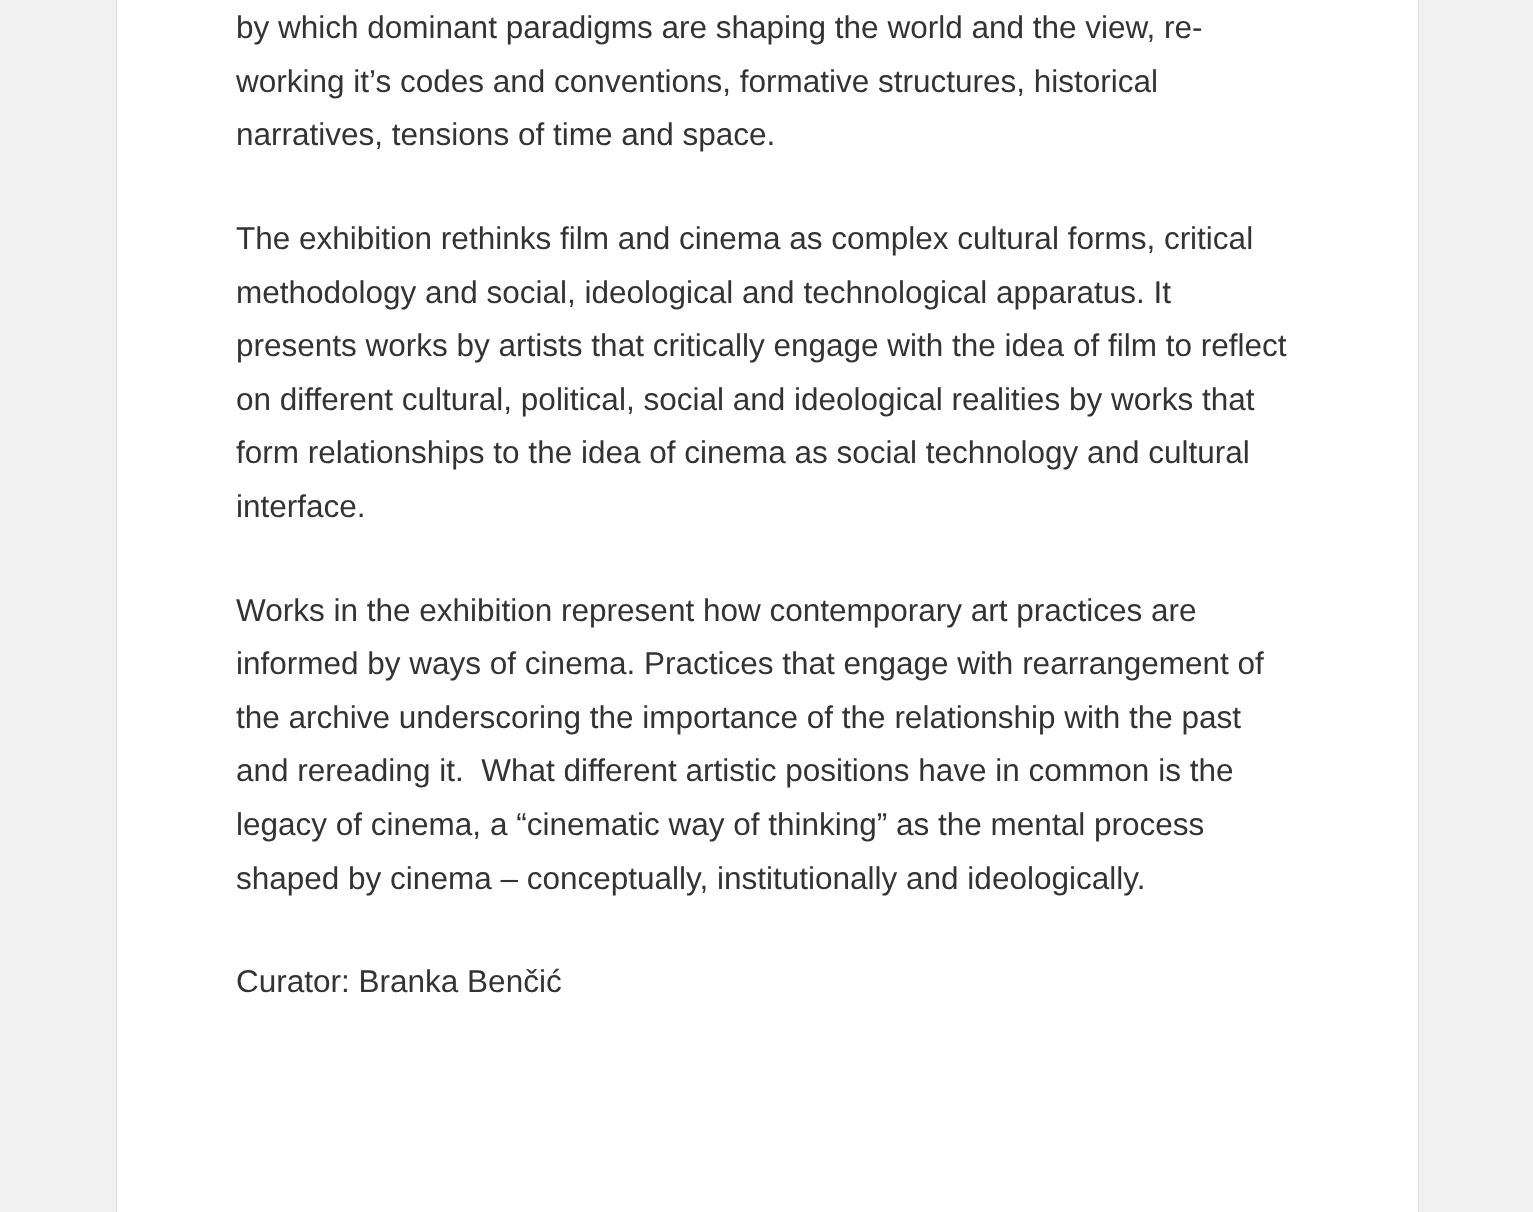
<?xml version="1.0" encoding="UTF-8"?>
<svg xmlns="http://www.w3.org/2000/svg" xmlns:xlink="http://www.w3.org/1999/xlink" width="1533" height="1212">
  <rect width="100%" height="100%" fill="#f1f1f1" />
  <rect x="117" y="-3" width="1301" height="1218" fill="#000000" fill-opacity="0.15" filter="blur(1px)" />
  <rect x="117" width="1301" height="1212" fill="#ffffff" />
  <text x="236" y="38" style="font-family: Liberation Sans; font-size: 31.5px; fill: #333333">by which dominant paradigms are shaping the world and the view, re-</text>
  <text x="236" y="92" style="font-family: Liberation Sans; font-size: 31.5px; fill: #333333">working it’s codes and conventions, formative structures, historical</text>
  <text x="236" y="145" style="font-family: Liberation Sans; font-size: 31.5px; fill: #333333">narratives, tensions of time and space.</text>
  <text x="236" y="249" style="font-family: Liberation Sans; font-size: 31.5px; fill: #333333">The exhibition rethinks film and cinema as complex cultural forms, critical</text>
  <text x="236" y="303" style="font-family: Liberation Sans; font-size: 31.5px; fill: #333333">methodology and social, ideological and technological apparatus. It</text>
  <text x="236" y="356" style="font-family: Liberation Sans; font-size: 31.5px; fill: #333333">presents works by artists that critically engage with the idea of film to reflect</text>
  <text x="236" y="410" style="font-family: Liberation Sans; font-size: 31.5px; fill: #333333">on different cultural, political, social and ideological realities by works that</text>
  <text x="236" y="463" style="font-family: Liberation Sans; font-size: 31.5px; fill: #333333">form relationships to the idea of cinema as social technology and cultural</text>
  <text x="236" y="517" style="font-family: Liberation Sans; font-size: 31.5px; fill: #333333">interface.</text>
  <text x="236" y="621" style="font-family: Liberation Sans; font-size: 31.5px; fill: #333333">Works in the exhibition represent how contemporary art practices are</text>
  <text x="236" y="674" style="font-family: Liberation Sans; font-size: 31.5px; fill: #333333">informed by ways of cinema. Practices that engage with rearrangement of</text>
  <text x="236" y="728" style="font-family: Liberation Sans; font-size: 31.5px; fill: #333333">the archive underscoring the importance of the relationship with the past</text>
  <text x="236" y="781" style="font-family: Liberation Sans; font-size: 31.5px; fill: #333333" xml:space="preserve">and rereading it.  What different artistic positions have in common is the</text>
  <text x="236" y="835" style="font-family: Liberation Sans; font-size: 31.5px; fill: #333333">legacy of cinema, a “cinematic way of thinking” as the mental process</text>
  <text x="236" y="889" style="font-family: Liberation Sans; font-size: 31.5px; fill: #333333">shaped by cinema – conceptually, institutionally and ideologically.</text>
  <text x="236" y="992" style="font-family: Liberation Sans; font-size: 31.5px; fill: #333333">Curator: Branka Benčić</text>
</svg>
